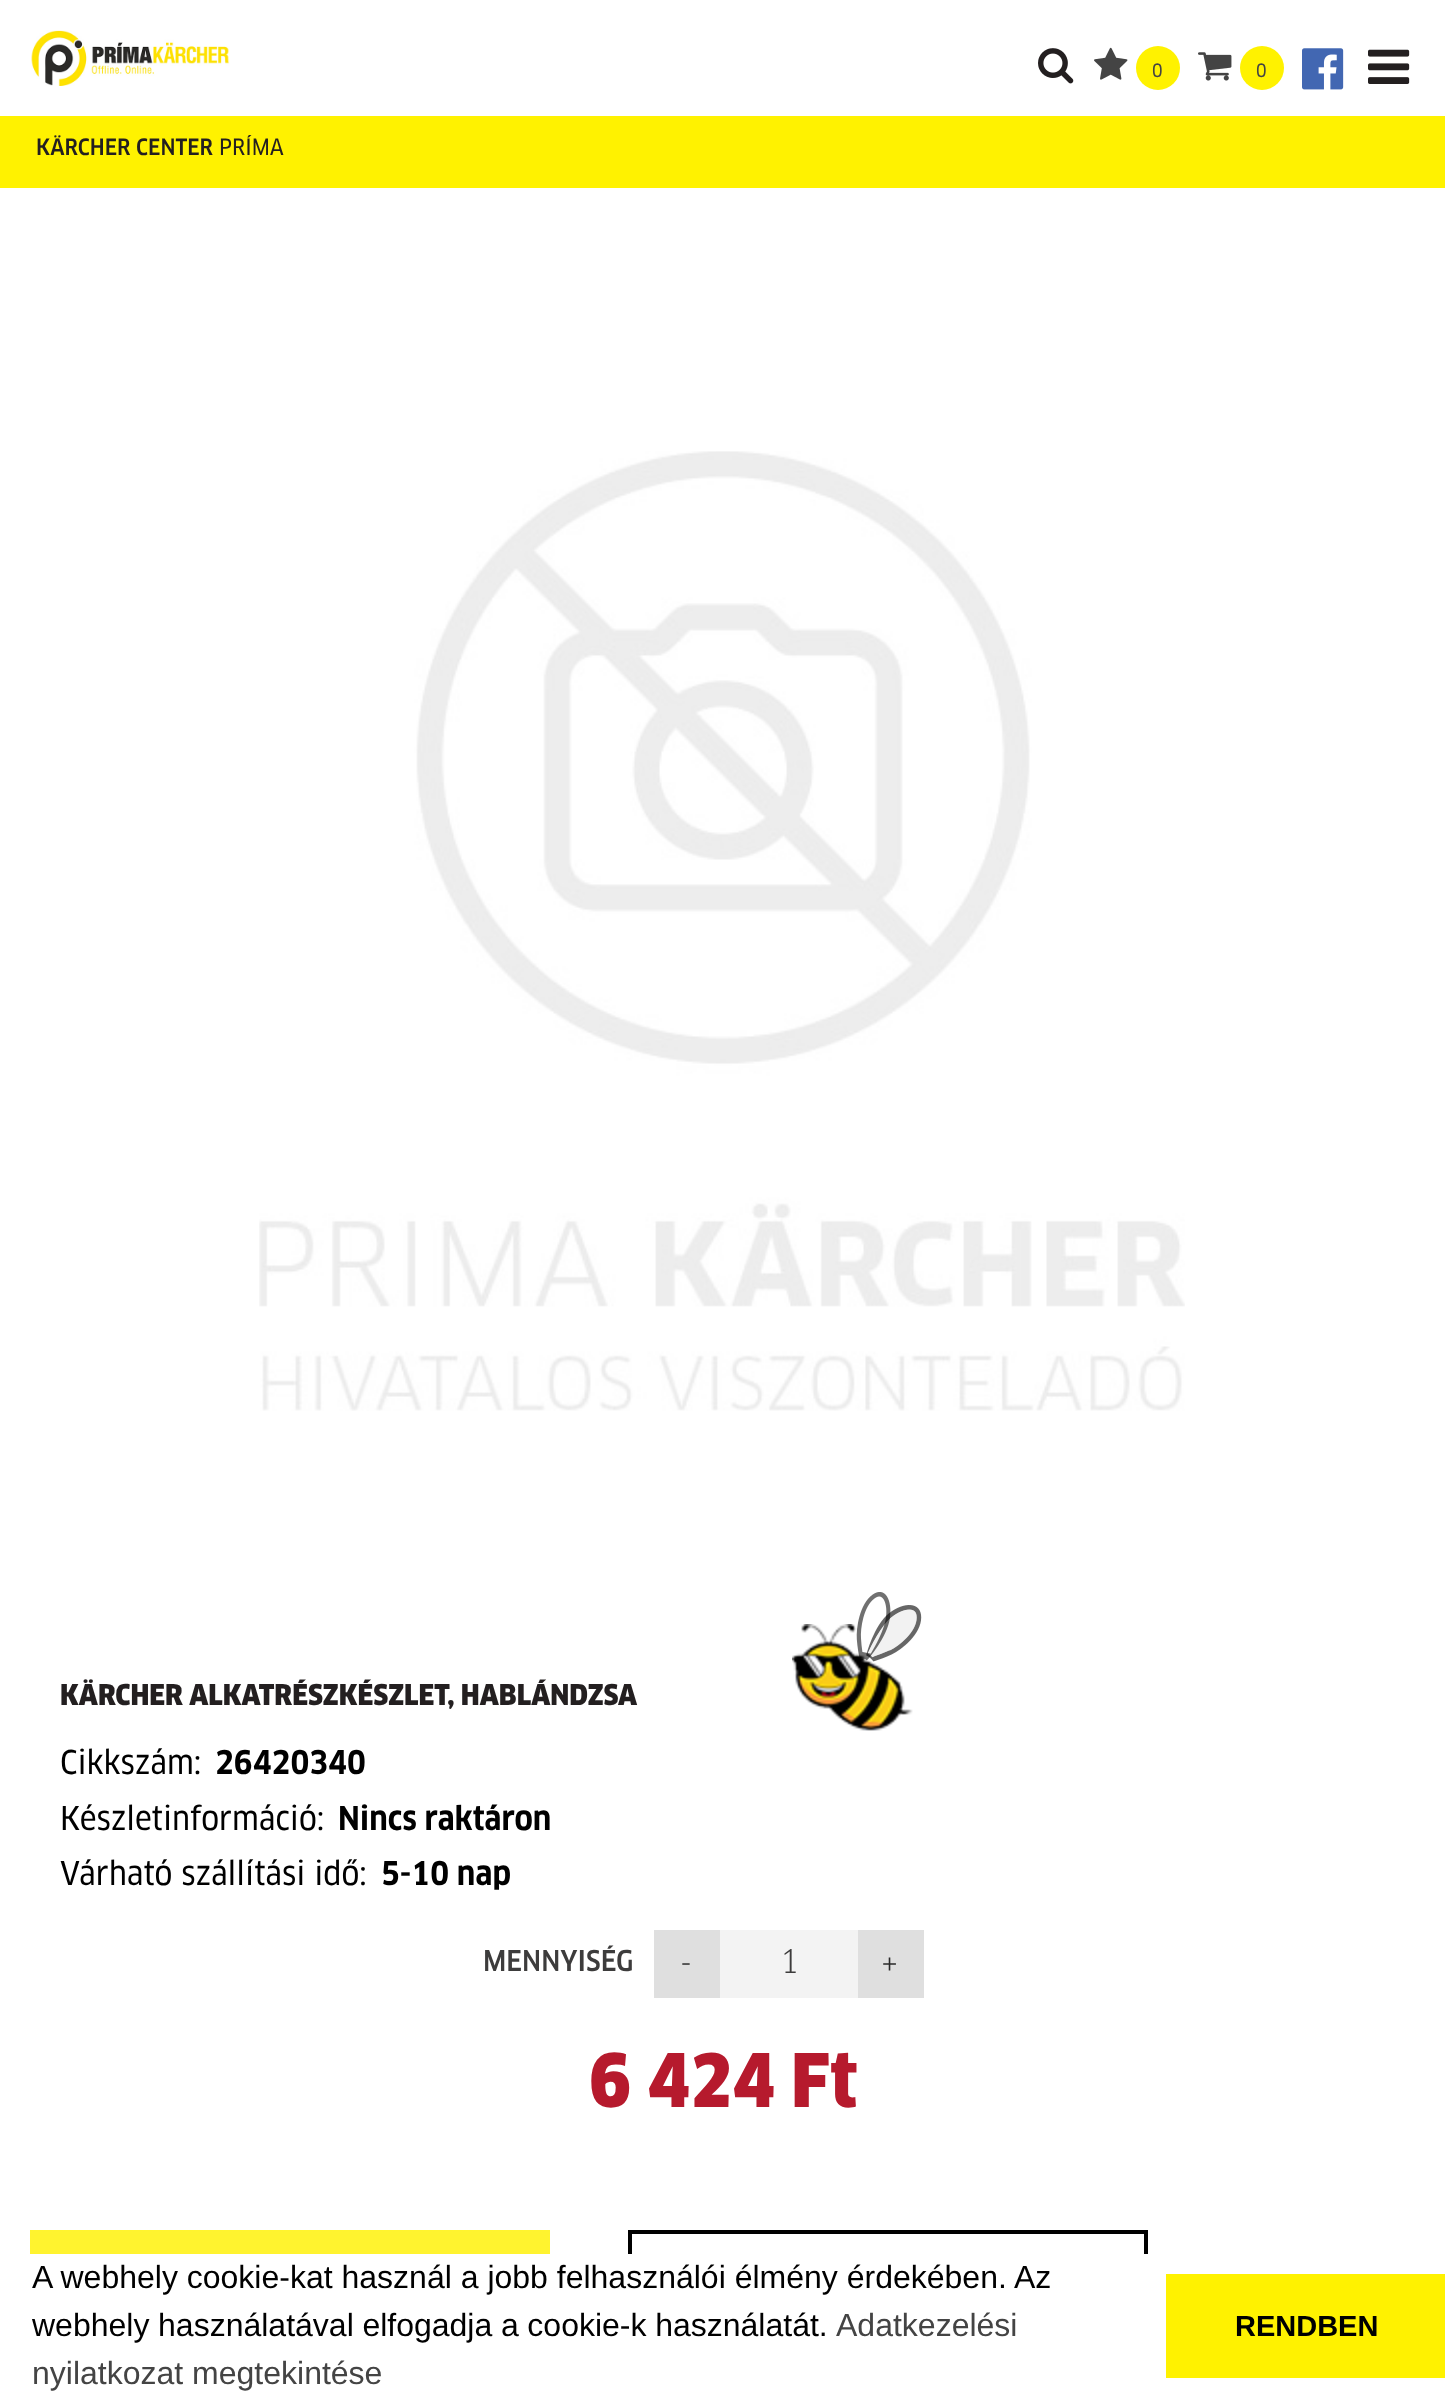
<?xml version="1.0" encoding="UTF-8"?>
<svg xmlns="http://www.w3.org/2000/svg" xmlns:xlink="http://www.w3.org/1999/xlink" width="1445" height="2397">
  <rect width="100%" height="100%" fill="#ffffff" />
  <image x="31" y="30" width="199" height="56" xlink:href="image1.png" />
  <image x="1038" y="48" width="36" height="36" xlink:href="image2.png" />
  <image x="1094" y="47" width="34" height="33" xlink:href="image3.png" />
  <circle cx="1158" cy="68" r="22" fill="#fff200" />
  <image x="1198" y="52" width="34" height="29" xlink:href="image4.png" />
  <circle cx="1262" cy="68" r="22" fill="#fff200" />
  <image x="1302" y="48" width="42" height="42" xlink:href="image5.png" />
  <image x="1368" y="49" width="42" height="35" xlink:href="image6.png" />
  <rect y="116" width="1445" height="72" fill="#fff200" />
  <image x="792" y="1624" width="121" height="107" xlink:href="image8.png" />
  <image x="856" y="1592" width="66" height="70" xlink:href="image7.png" />
  <image x="259" y="451" width="926" height="960" xlink:href="image9.png" />
  <rect x="654" y="1930" width="66" height="68" fill="#dfdfdf" />
  <rect x="720" y="1930" width="138" height="68" fill="#f3f3f3" />
  <rect x="858" y="1930" width="66" height="68" fill="#dfdfdf" />
  <rect x="30" y="2230" width="520" height="24" fill="#fff32f" />
  <rect x="630" y="2232" width="516" height="94" fill="none" stroke="#000000" stroke-width="4" />
  <rect x="628" y="2254" width="520" height="74" fill="#ffffff" />
  <rect x="1166" y="2274" width="279" height="104" fill="#fff200" />
  <text x="1152" y="77" style="font-family: 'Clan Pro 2'; font-size: 18px; font-weight: 500; fill: #444444">0</text>
  <text x="1256" y="77" style="font-family: 'Clan Pro 2'; font-size: 18px; font-weight: 500; fill: #444444">0</text>
  <text x="36" y="155" style="font-family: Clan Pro; font-size: 22px; font-weight: 500; fill: #231f20">KÄRCHER CENTER</text>
  <text x="219" y="155" style="font-family: 'Clan Pro 2'; font-size: 22px; font-weight: 500; fill: #231f20">PRÍMA</text>
  <text x="60" y="1705" style="font-family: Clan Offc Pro; font-size: 28px; font-weight: 900; fill: #231f20">KÄRCHER ALKATRÉSZKÉSZLET, HABLÁNDZSA</text>
  <text x="60" y="1774" style="font-family: 'Clan Pro 2'; font-size: 32px; font-weight: 500; fill: #000000">Cikkszám:</text>
  <text x="215" y="1774" style="font-family: Clan Pro; font-size: 32px; font-weight: bold; fill: #000000">26420340</text>
  <text x="60" y="1830" style="font-family: 'Clan Pro 2'; font-size: 32px; font-weight: 500; fill: #000000">Készletinformáció:</text>
  <text x="338" y="1830" style="font-family: Clan Pro; font-size: 32px; font-weight: bold; fill: #000000">Nincs raktáron</text>
  <text x="60" y="1885" style="font-family: 'Clan Pro 2'; font-size: 32px; font-weight: 500; fill: #000000">Várható szállítási idő:</text>
  <text x="381" y="1885" style="font-family: Clan Pro; font-size: 32px; font-weight: bold; fill: #000000">5-10 nap</text>
  <text x="483" y="1971" style="font-family: Clan Pro; font-size: 28px; font-weight: 500; fill: #3d3c3c">MENNYISÉG</text>
  <text x="680" y="1975" style="font-family: Clan Pro; font-size: 32px; fill: #2a2a2a">-</text>
  <text x="780" y="1973" style="font-family: Clan Pro; font-size: 32px; fill: #3d3c3c">1</text>
  <text x="881" y="1975" style="font-family: Clan Pro; font-size: 32px; fill: #2a2a2a">+</text>
  <text x="589" y="2107" style="font-family: Clan Offc Pro; font-size: 72px; font-weight: 900; fill: #b61a2d">6 424 Ft</text>
  <text x="32" y="2288" style="font-family: Liberation Sans; font-size: 32px; fill: #000000">A webhely cookie-kat használ a jobb felhasználói élmény érdekében. Az</text>
  <text x="32" y="2336" word-spacing="-0.25" style="font-family: Liberation Sans; font-size: 32px; fill: #000000">webhely használatával elfogadja a cookie-k használatát.</text>
  <text x="836" y="2336" style="font-family: Liberation Sans; font-size: 32px; fill: #444444">Adatkezelési</text>
  <text x="32" y="2384" style="font-family: Liberation Sans; font-size: 32px; fill: #444444">nyilatkozat megtekintése</text>
  <text x="1235" y="2336" style="font-family: Liberation Sans; font-size: 29px; font-weight: bold; fill: #000000">RENDBEN</text>
</svg>
